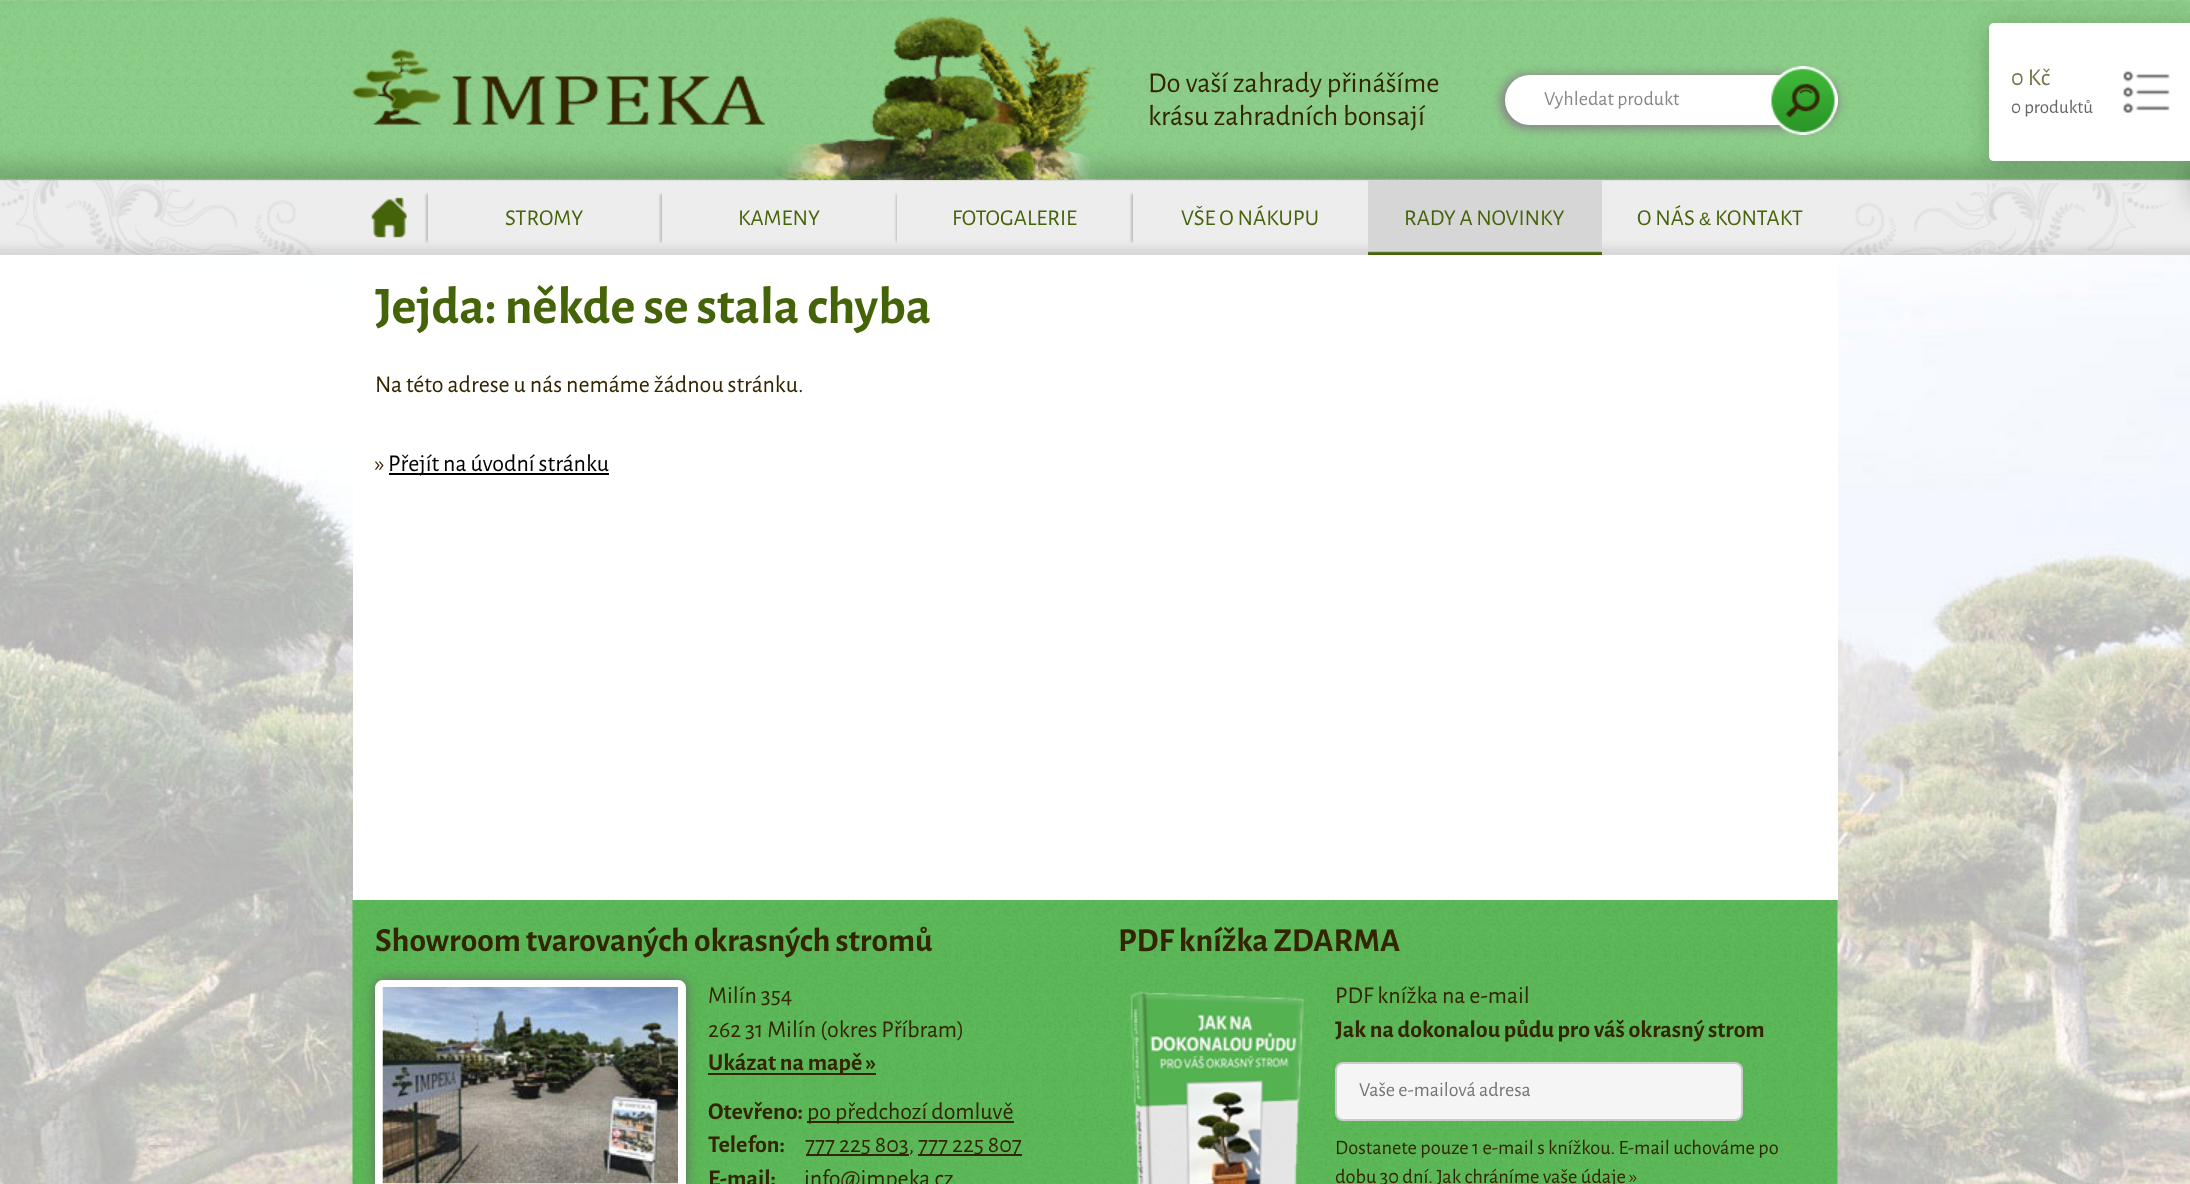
<?xml version="1.0" encoding="UTF-8"?>
<svg xmlns="http://www.w3.org/2000/svg" xmlns:xlink="http://www.w3.org/1999/xlink" width="2190" height="1184">
  <defs>
    <clipPath id="clip1"><rect x="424" y="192" width="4" height="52" /></clipPath>
    <clipPath id="clip2"><rect x="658" y="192" width="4" height="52" /></clipPath>
    <clipPath id="clip3"><rect x="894" y="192" width="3" height="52" /></clipPath>
    <clipPath id="clip4"><rect x="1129" y="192" width="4" height="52" /></clipPath>
  </defs>
  <rect width="100%" height="100%" fill="#ffffff" />
  <image x="0" y="255" width="2190" height="929" xlink:href="image1.png" />
  <image x="0" y="0" width="2190" height="255" xlink:href="image2.png" />
  <image x="773" y="16" width="322" height="164" xlink:href="image3.png" />
  <image x="352" y="49" width="413" height="76" xlink:href="image4.png" />
  <rect x="1500" y="74" width="339" height="55" rx="27.5" fill="#888888" filter="blur(4px)" />
  <rect x="1506" y="76" width="331" height="48" rx="24" fill="#ffffff" stroke="#ffffff" stroke-width="2" />
  <image x="1771" y="66" width="67" height="69" xlink:href="image5.png" />
  <image x="1" y="180" width="312" height="75" xlink:href="image6.png" />
  <image x="371" y="197" width="36" height="41" xlink:href="image7.png" />
  <g clip-path="url(#clip1)">
    <rect x="426" y="194" width="207" height="48" fill="#bebebe" filter="blur(1px)" />
  </g>
  <g clip-path="url(#clip2)">
    <rect x="660" y="194" width="209" height="48" fill="#bebebe" filter="blur(1px)" />
  </g>
  <g clip-path="url(#clip3)">
    <rect x="896" y="194" width="208" height="48" fill="#bebebe" filter="blur(1px)" />
  </g>
  <g clip-path="url(#clip4)">
    <rect x="1131" y="194" width="209" height="48" fill="#bebebe" filter="blur(1px)" />
  </g>
  <rect x="1368" y="180" width="234" height="71" fill="#d6d6d6" />
  <image x="1368" y="251" width="234" height="4" xlink:href="image8.png" />
  <image x="1839" y="183" width="332" height="72" xlink:href="image9.png" />
  <rect x="353" y="255" width="1485" height="645" fill="#ffffff" />
  <rect x="389" y="473" width="220" height="2" fill="#000000" />
  <image x="352" y="900" width="1486" height="284" xlink:href="image10.png" />
  <rect x="375" y="980" width="311" height="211" rx="8" fill="#666666" filter="blur(6px)" />
  <rect x="379" y="984" width="303" height="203" rx="4" fill="none" stroke="#ffffff" stroke-width="8" />
  <image x="382" y="987" width="296" height="197" xlink:href="image11.png" />
  <rect x="708" y="1073" width="168" height="2" fill="#332500" />
  <rect x="807" y="1121" width="207" height="2" fill="#332500" />
  <rect x="806" y="1154" width="103" height="2" fill="#332500" />
  <rect x="918" y="1154" width="104" height="2" fill="#332500" />
  <image x="1130" y="991" width="174" height="193" xlink:href="image12.png" />
  <rect x="1336" y="1063" width="406" height="57" rx="7" fill="#f5f5f5" stroke="#cccccc" stroke-width="2" />
  <rect x="1989" y="26" width="201" height="138" rx="5" fill="#000000" fill-opacity="0.2" filter="blur(12px)" />
  <rect x="2190" y="26" width="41" height="178" rx="5" fill="#000000" fill-opacity="0.2" filter="blur(12px)" />
  <path d="M 1994 23 h 196 v 138 h -196 c -3 0 -5 -2 -5 -5 v -128 c 0 -3 2 -5 5 -5 z" fill="#ffffff" />
  <image x="2123" y="71" width="47" height="42" xlink:href="image13.png" />
  <text x="1148" y="92" style="font-family: Alegreya Sans; font-size: 28.75px; fill: #332500">Do vaší zahrady přinášíme</text>
  <text x="1148" y="125" style="font-family: Alegreya Sans; font-size: 28.75px; fill: #332500">krásu zahradních bonsají</text>
  <text x="1544" y="105" style="font-family: Alegreya Sans; font-size: 20px; fill: #888888">Vyhledat produkt</text>
  <text x="505" y="225" style="font-family: Alegreya Sans; font-size: 22.75px; fill: #456308">STROMY</text>
  <text x="738" y="225" style="font-family: Alegreya Sans; font-size: 22.75px; fill: #456308">KAMENY</text>
  <text x="952" y="225" style="font-family: Alegreya Sans; font-size: 22.75px; fill: #456308">FOTOGALERIE</text>
  <text x="1181" y="225" style="font-family: Alegreya Sans; font-size: 22.75px; fill: #456308">VŠE O NÁKUPU</text>
  <text x="1404" y="225" style="font-family: Alegreya Sans; font-size: 22.75px; fill: #456308">RADY A NOVINKY</text>
  <text x="1637" y="225" style="font-family: Alegreya Sans; font-size: 22.75px; fill: #456308">O NÁS</text>
  <text x="1699" y="225" style="font-family: Liberation Sans; font-size: 18px; fill: #456308">&amp;</text>
  <text x="1715" y="225" style="font-family: Alegreya Sans; font-size: 22.75px; fill: #456308">KONTAKT</text>
  <text x="375" y="323" style="font-family: Alegreya Sans; font-size: 52.75px; font-weight: bold; fill: #456308">Jejda: někde se stala chyba</text>
  <text x="375" y="392" style="font-family: Alegreya Sans; font-size: 24px; fill: #332500">Na této adrese u nás nemáme žádnou stránku.</text>
  <text x="375" y="471" style="font-family: Alegreya Sans; font-size: 24px; fill: #332500">»</text>
  <text x="388" y="471" style="font-family: Alegreya Sans; font-size: 24px; fill: #000000">Přejít na úvodní stránku</text>
  <text x="375" y="951" style="font-family: Alegreya Sans; font-size: 33.6px; font-weight: bold; fill: #332500">Showroom tvarovaných okrasných stromů</text>
  <text x="708" y="1003" style="font-family: Alegreya Sans; font-size: 24px; fill: #332500">Milín 354</text>
  <text x="708" y="1037" style="font-family: Alegreya Sans; font-size: 24px; fill: #332500">262 31 Milín (okres Příbram)</text>
  <text x="708" y="1070" style="font-family: Alegreya Sans; font-size: 24px; font-weight: bold; fill: #332500">Ukázat na mapě »</text>
  <text x="708" y="1119" style="font-family: Alegreya Sans; font-size: 24px; font-weight: bold; fill: #332500">Otevřeno:</text>
  <text x="807" y="1119" style="font-family: Alegreya Sans; font-size: 24px; fill: #332500">po předchozí domluvě</text>
  <text x="708" y="1152" style="font-family: Alegreya Sans; font-size: 24px; font-weight: bold; fill: #332500">Telefon:</text>
  <text x="805" y="1152" style="font-family: Alegreya Sans; font-size: 24px; fill: #332500">777 225 803,</text>
  <text x="918" y="1152" style="font-family: Alegreya Sans; font-size: 24px; fill: #332500">777 225 807</text>
  <text x="708" y="1186" style="font-family: Alegreya Sans; font-size: 24px; font-weight: bold; fill: #332500">E-mail:</text>
  <text x="804" y="1186" style="font-family: Alegreya Sans; font-size: 24px; fill: #332500">info@impeka.cz</text>
  <text x="1118" y="951" style="font-family: Alegreya Sans; font-size: 33.6px; font-weight: bold; fill: #332500">PDF knížka ZDARMA</text>
  <text x="1335" y="1003" style="font-family: Alegreya Sans; font-size: 24px; fill: #332500">PDF knížka na e-mail</text>
  <text x="1335" y="1037" style="font-family: Alegreya Sans; font-size: 24px; font-weight: bold; fill: #332500">Jak na dokonalou půdu pro váš okrasný strom</text>
  <text x="1359" y="1096" style="font-family: Alegreya Sans; font-size: 20px; fill: #757575">Vaše e-mailová adresa</text>
  <text x="1335" y="1154" style="font-family: Alegreya Sans; font-size: 20.4px; fill: #332500">Dostanete pouze 1 e-mail s knížkou. E-mail uchováme po</text>
  <text x="1335" y="1183" style="font-family: Alegreya Sans; font-size: 20.4px; fill: #332500">dobu 30 dní. Jak chráníme vaše údaje »</text>
  <text x="2011" y="85" style="font-family: Alegreya Sans; font-size: 24px; fill: #757449">0 Kč</text>
  <text x="2011" y="113" style="font-family: Alegreya Sans; font-size: 19px; fill: #666666">0 produktů</text>
</svg>
